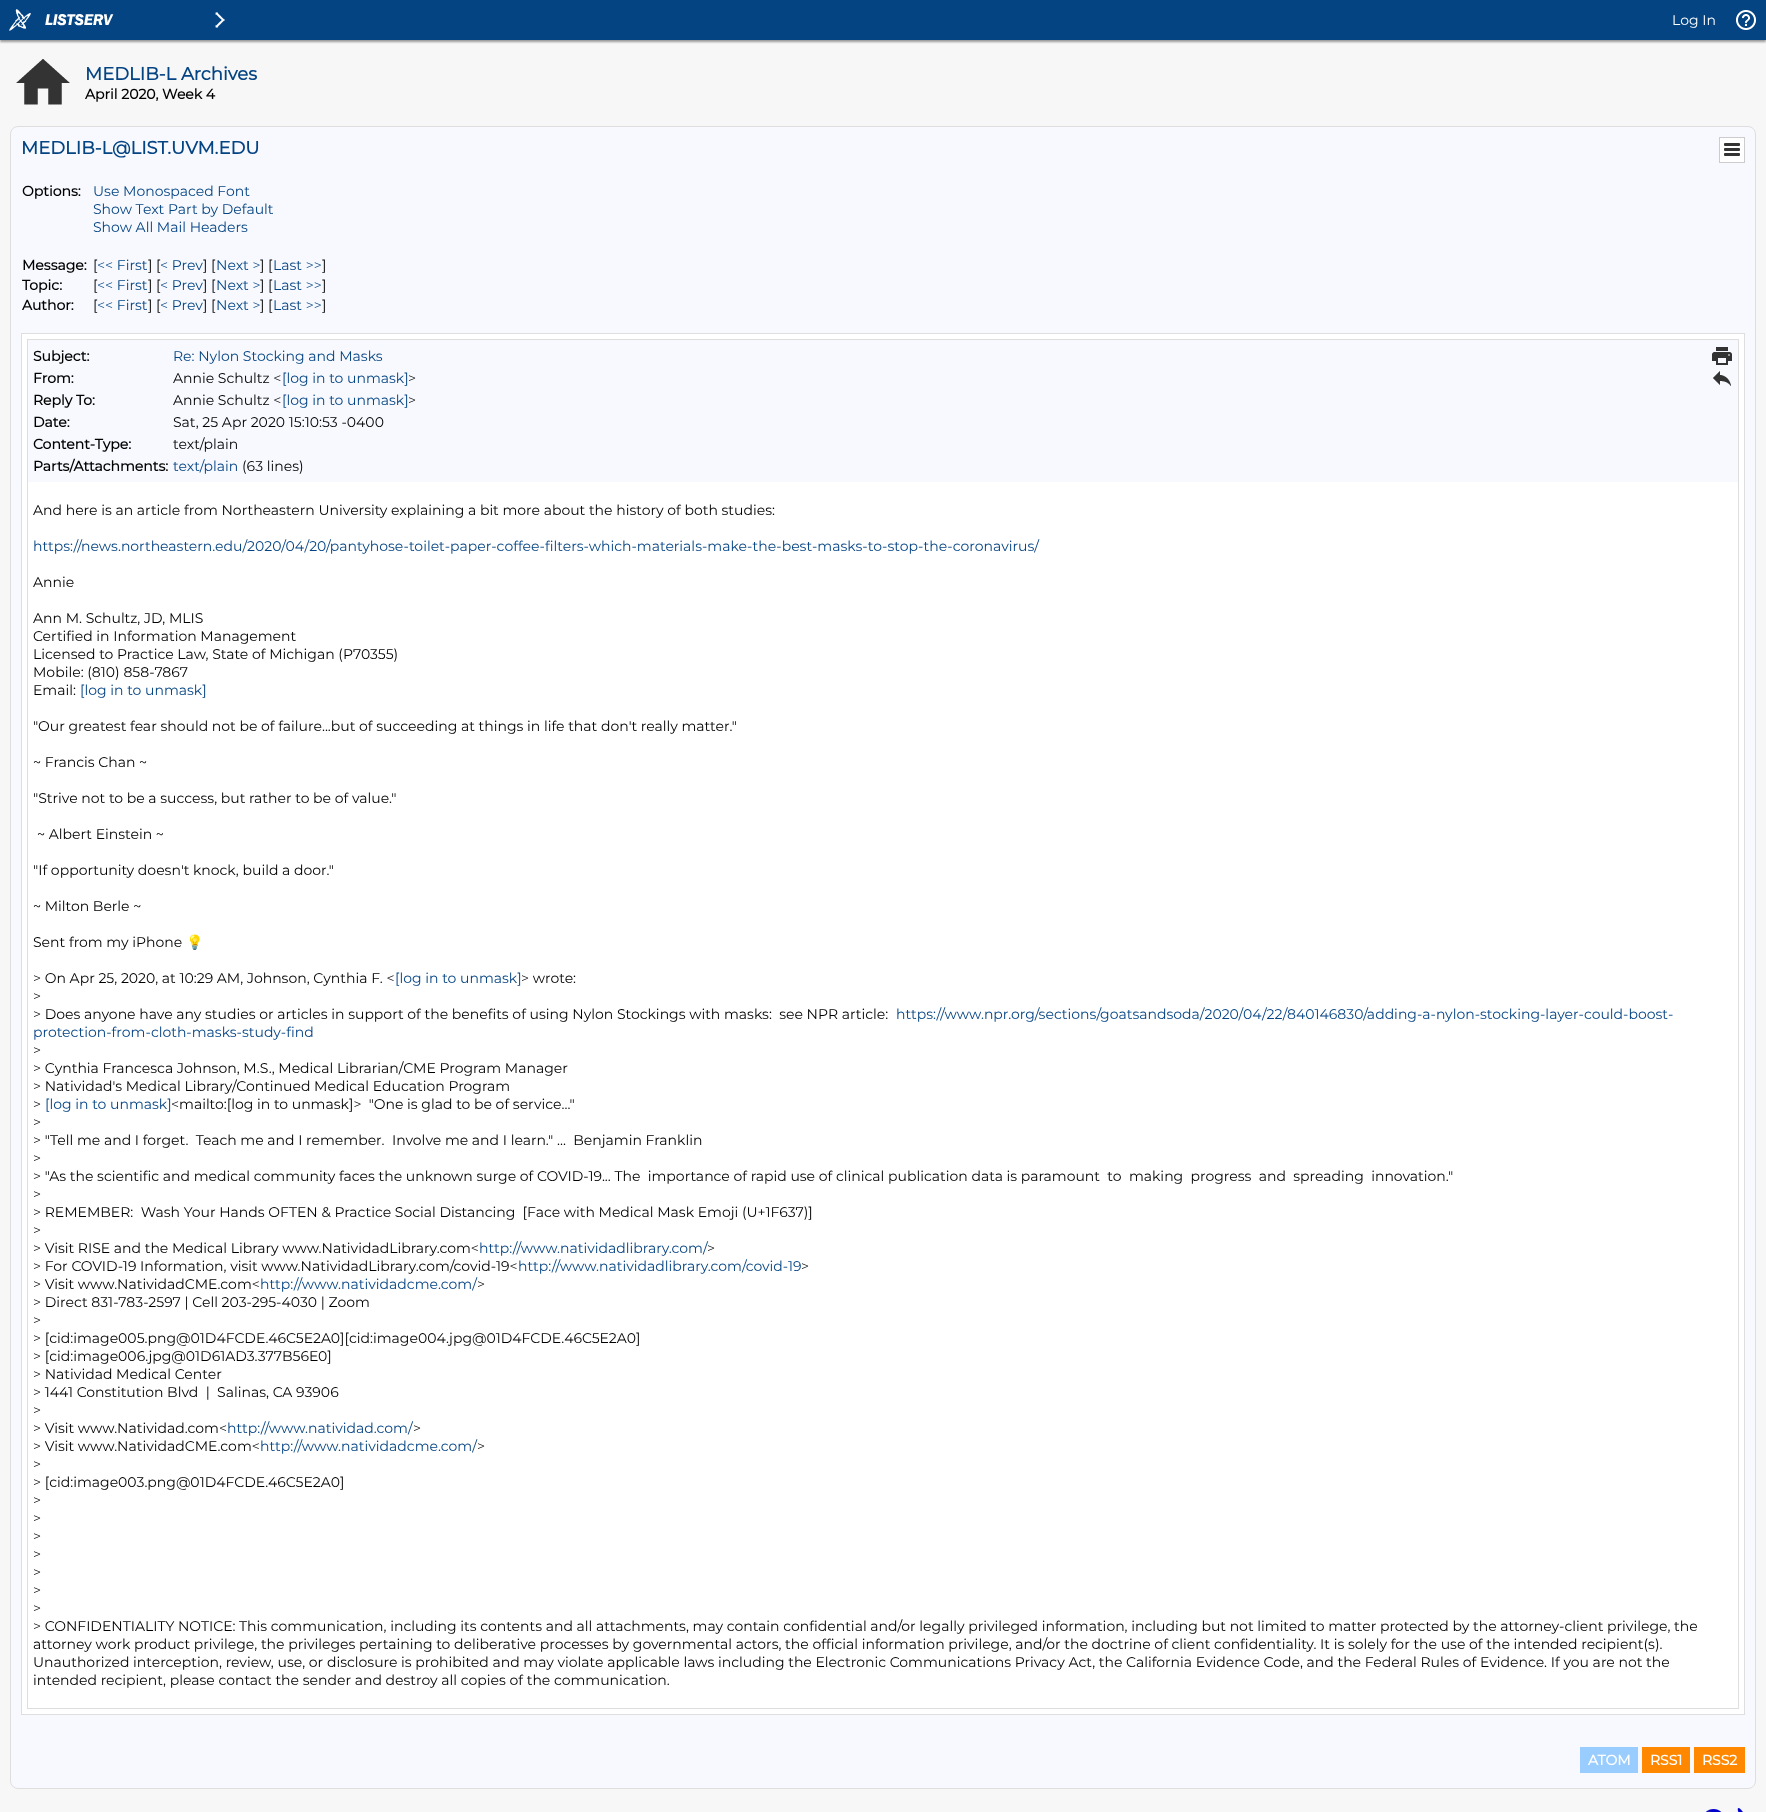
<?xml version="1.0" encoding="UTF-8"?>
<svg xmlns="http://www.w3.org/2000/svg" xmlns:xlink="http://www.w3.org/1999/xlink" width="1766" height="1812">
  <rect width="100%" height="100%" fill="#f7f7f7" />
  <rect y="2" width="1766" height="40" fill="#999999" filter="blur(1px)" />
  <rect width="1766" height="40" fill="#054483" />
  <image x="9" y="9" width="22" height="22" xlink:href="image1.png" />
  <image x="45" y="14" width="69" height="12" xlink:href="image2.png" />
  <image x="215" y="12" width="10" height="16" xlink:href="image3.png" />
  <image x="1736" y="10" width="20" height="20" xlink:href="image4.png" />
  <image x="16" y="59" width="54" height="46" xlink:href="image5.png" />
  <rect x="10.5" y="126.5" width="1745" height="1662" rx="7.5" fill="#f7f9fe" stroke="#dedede" />
  <rect x="1719.5" y="137.5" width="25" height="25" fill="#ffffff" stroke="#cccccc" />
  <image x="1724" y="143" width="16" height="13" xlink:href="image6.png" />
  <rect x="21.5" y="333.5" width="1723" height="1381" fill="none" stroke="#dedede" />
  <rect x="22" y="334" width="1722" height="1380" fill="#ffffff" />
  <rect x="27.5" y="339.5" width="1711" height="1369" fill="none" stroke="#dedede" />
  <rect x="28" y="340" width="1710" height="142" fill="#f7f9fe" />
  <image x="1712" y="347" width="20" height="18" xlink:href="image7.png" />
  <image x="1713" y="371" width="18" height="15" xlink:href="image8.png" />
  <rect x="1580" y="1747" width="58" height="26" fill="#99ccff" />
  <rect x="1642" y="1747" width="48" height="26" fill="#ff8800" />
  <rect x="1694" y="1747" width="51" height="26" fill="#ff8800" />
  <image x="1706" y="1809" width="16" height="3" xlink:href="image9.png" />
  <image x="1737" y="1808" width="6" height="4" xlink:href="image10.png" />
  <text x="1672" y="25" style="font-family: Montserrat; font-size: 14px; font-weight: 100; fill: #ffffff">Log In</text>
  <text x="85" y="80" style="font-family: Montserrat; font-size: 18px; font-weight: bold; fill: #054483">MEDLIB-L Archives</text>
  <text x="85" y="99" style="font-family: Montserrat; font-size: 14px; font-weight: bold; fill: #000000">April 2020, Week 4</text>
  <text x="21" y="154" style="font-family: Montserrat; font-size: 18px; font-weight: bold; fill: #054483">MEDLIB-L@LIST.UVM.EDU</text>
  <text x="22" y="196" style="font-family: Montserrat; font-size: 14px; font-weight: bold; fill: #000000">Options:</text>
  <text x="93" y="196" style="font-family: Montserrat; font-size: 14px; font-weight: 100; fill: #054483">Use Monospaced Font</text>
  <text x="93" y="214" style="font-family: Montserrat; font-size: 14px; font-weight: 100; fill: #054483">Show Text Part by Default</text>
  <text x="93" y="232" style="font-family: Montserrat; font-size: 14px; font-weight: 100; fill: #054483">Show All Mail Headers</text>
  <text x="22" y="270" style="font-family: Montserrat; font-size: 14px; font-weight: bold; fill: #000000">Message:</text>
  <text x="93" y="270" style="font-family: Montserrat; font-size: 14px; font-weight: 100; fill: #000000">[</text>
  <text x="97" y="270" style="font-family: Montserrat; font-size: 14px; font-weight: 100; fill: #054483">&lt;&lt; First</text>
  <text x="148" y="270" style="font-family: Montserrat; font-size: 14px; font-weight: 100; fill: #000000">] [</text>
  <text x="160" y="270" style="font-family: Montserrat; font-size: 14px; font-weight: 100; fill: #054483">&lt; Prev</text>
  <text x="203" y="270" style="font-family: Montserrat; font-size: 14px; font-weight: 100; fill: #000000">] [</text>
  <text x="216" y="270" style="font-family: Montserrat; font-size: 14px; font-weight: 100; fill: #054483">Next &gt;</text>
  <text x="260" y="270" style="font-family: Montserrat; font-size: 14px; font-weight: 100; fill: #000000">] [</text>
  <text x="273" y="270" style="font-family: Montserrat; font-size: 14px; font-weight: 100; fill: #054483">Last &gt;&gt;</text>
  <text x="322" y="270" style="font-family: Montserrat; font-size: 14px; font-weight: 100; fill: #000000">]</text>
  <text x="22" y="290" style="font-family: Montserrat; font-size: 14px; font-weight: bold; fill: #000000">Topic:</text>
  <text x="93" y="290" style="font-family: Montserrat; font-size: 14px; font-weight: 100; fill: #000000">[</text>
  <text x="97" y="290" style="font-family: Montserrat; font-size: 14px; font-weight: 100; fill: #054483">&lt;&lt; First</text>
  <text x="148" y="290" style="font-family: Montserrat; font-size: 14px; font-weight: 100; fill: #000000">] [</text>
  <text x="160" y="290" style="font-family: Montserrat; font-size: 14px; font-weight: 100; fill: #054483">&lt; Prev</text>
  <text x="203" y="290" style="font-family: Montserrat; font-size: 14px; font-weight: 100; fill: #000000">] [</text>
  <text x="216" y="290" style="font-family: Montserrat; font-size: 14px; font-weight: 100; fill: #054483">Next &gt;</text>
  <text x="260" y="290" style="font-family: Montserrat; font-size: 14px; font-weight: 100; fill: #000000">] [</text>
  <text x="273" y="290" style="font-family: Montserrat; font-size: 14px; font-weight: 100; fill: #054483">Last &gt;&gt;</text>
  <text x="322" y="290" style="font-family: Montserrat; font-size: 14px; font-weight: 100; fill: #000000">]</text>
  <text x="22" y="310" style="font-family: Montserrat; font-size: 14px; font-weight: bold; fill: #000000">Author:</text>
  <text x="93" y="310" style="font-family: Montserrat; font-size: 14px; font-weight: 100; fill: #000000">[</text>
  <text x="97" y="310" style="font-family: Montserrat; font-size: 14px; font-weight: 100; fill: #054483">&lt;&lt; First</text>
  <text x="148" y="310" style="font-family: Montserrat; font-size: 14px; font-weight: 100; fill: #000000">] [</text>
  <text x="160" y="310" style="font-family: Montserrat; font-size: 14px; font-weight: 100; fill: #054483">&lt; Prev</text>
  <text x="203" y="310" style="font-family: Montserrat; font-size: 14px; font-weight: 100; fill: #000000">] [</text>
  <text x="216" y="310" style="font-family: Montserrat; font-size: 14px; font-weight: 100; fill: #054483">Next &gt;</text>
  <text x="260" y="310" style="font-family: Montserrat; font-size: 14px; font-weight: 100; fill: #000000">] [</text>
  <text x="273" y="310" style="font-family: Montserrat; font-size: 14px; font-weight: 100; fill: #054483">Last &gt;&gt;</text>
  <text x="322" y="310" style="font-family: Montserrat; font-size: 14px; font-weight: 100; fill: #000000">]</text>
  <text x="33" y="361" style="font-family: Montserrat; font-size: 14px; font-weight: bold; fill: #000000">Subject:</text>
  <text x="173" y="361" style="font-family: Montserrat; font-size: 14px; font-weight: 100; fill: #054483">Re: Nylon Stocking and Masks</text>
  <text x="33" y="383" style="font-family: Montserrat; font-size: 14px; font-weight: bold; fill: #000000">From:</text>
  <text x="173" y="383" style="font-family: Montserrat; font-size: 14px; font-weight: 100; fill: #000000">Annie Schultz &lt;</text>
  <text x="282" y="383" style="font-family: Montserrat; font-size: 14px; font-weight: 100; fill: #054483">[log in to unmask]</text>
  <text x="408" y="383" style="font-family: Montserrat; font-size: 14px; font-weight: 100; fill: #000000">&gt;</text>
  <text x="33" y="405" style="font-family: Montserrat; font-size: 14px; font-weight: bold; fill: #000000">Reply To:</text>
  <text x="173" y="405" style="font-family: Montserrat; font-size: 14px; font-weight: 100; fill: #000000">Annie Schultz &lt;</text>
  <text x="282" y="405" style="font-family: Montserrat; font-size: 14px; font-weight: 100; fill: #054483">[log in to unmask]</text>
  <text x="408" y="405" style="font-family: Montserrat; font-size: 14px; font-weight: 100; fill: #000000">&gt;</text>
  <text x="33" y="427" style="font-family: Montserrat; font-size: 14px; font-weight: bold; fill: #000000">Date:</text>
  <text x="173" y="427" style="font-family: Montserrat; font-size: 14px; font-weight: 100; fill: #000000">Sat, 25 Apr 2020 15:10:53 -0400</text>
  <text x="33" y="449" style="font-family: Montserrat; font-size: 14px; font-weight: bold; fill: #000000">Content-Type:</text>
  <text x="173" y="449" style="font-family: Montserrat; font-size: 14px; font-weight: 100; fill: #000000">text/plain</text>
  <text x="33" y="471" style="font-family: Montserrat; font-size: 14px; font-weight: bold; fill: #000000">Parts/Attachments:</text>
  <text x="173" y="471" style="font-family: Montserrat; font-size: 14px; font-weight: 100; fill: #054483">text/plain</text>
  <text x="242" y="471" style="font-family: Montserrat; font-size: 14px; font-weight: 100; fill: #000000">(63 lines)</text>
  <text x="33" y="515" style="font-family: Montserrat; font-size: 14px; font-weight: 100; fill: #000000">And here is an article from Northeastern University explaining a bit more about the history of both studies:</text>
  <text x="33" y="551" style="font-family: Montserrat; font-size: 14px; font-weight: 100; fill: #054483">https://news.northeastern.edu/2020/04/20/pantyhose-toilet-paper-coffee-filters-which-materials-make-the-best-masks-to-stop-the-coronavirus/</text>
  <text x="33" y="587" style="font-family: Montserrat; font-size: 14px; font-weight: 100; fill: #000000">Annie</text>
  <text x="33" y="623" style="font-family: Montserrat; font-size: 14px; font-weight: 100; fill: #000000">Ann M. Schultz, JD, MLIS</text>
  <text x="33" y="641" style="font-family: Montserrat; font-size: 14px; font-weight: 100; fill: #000000">Certified in Information Management</text>
  <text x="33" y="659" style="font-family: Montserrat; font-size: 14px; font-weight: 100; fill: #000000">Licensed to Practice Law, State of Michigan (P70355)</text>
  <text x="33" y="677" style="font-family: Montserrat; font-size: 14px; font-weight: 100; fill: #000000">Mobile: (810) 858-7867</text>
  <text x="33" y="695" style="font-family: Montserrat; font-size: 14px; font-weight: 100; fill: #000000">Email:</text>
  <text x="80" y="695" style="font-family: Montserrat; font-size: 14px; font-weight: 100; fill: #054483">[log in to unmask]</text>
  <text x="33" y="731" style="font-family: Montserrat; font-size: 14px; font-weight: 100; fill: #000000">"Our greatest fear should not be of failure...but of succeeding at things in life that don't really matter."</text>
  <text x="33" y="767" style="font-family: Montserrat; font-size: 14px; font-weight: 100; fill: #000000">~ Francis Chan ~</text>
  <text x="33" y="803" style="font-family: Montserrat; font-size: 14px; font-weight: 100; fill: #000000">"Strive not to be a success, but rather to be of value."</text>
  <text x="37" y="839" style="font-family: Montserrat; font-size: 14px; font-weight: 100; fill: #000000">~ Albert Einstein ~</text>
  <text x="33" y="875" style="font-family: Montserrat; font-size: 14px; font-weight: 100; fill: #000000">"If opportunity doesn't knock, build a door."</text>
  <text x="33" y="911" style="font-family: Montserrat; font-size: 14px; font-weight: 100; fill: #000000">~ Milton Berle ~</text>
  <text x="33" y="947" style="font-family: Montserrat; font-size: 14px; font-weight: 100; fill: #000000">Sent from my iPhone</text>
  <text x="186" y="947" style="font-family: Noto Color Emoji; font-size: 14px; fill: #000000">💡</text>
  <text x="33" y="983" style="font-family: Montserrat; font-size: 14px; font-weight: 100; fill: #000000">&gt; On Apr 25, 2020, at 10:29 AM, Johnson, Cynthia F. &lt;</text>
  <text x="395" y="983" style="font-family: Montserrat; font-size: 14px; font-weight: 100; fill: #054483">[log in to unmask]</text>
  <text x="521" y="983" style="font-family: Montserrat; font-size: 14px; font-weight: 100; fill: #000000">&gt; wrote:</text>
  <text x="33" y="1001" style="font-family: Montserrat; font-size: 14px; font-weight: 100; fill: #000000">&gt;</text>
  <text x="33" y="1019" style="font-family: Montserrat; font-size: 14px; font-weight: 100; fill: #000000" xml:space="preserve">&gt; Does anyone have any studies or articles in support of the benefits of using Nylon Stockings with masks:  see NPR article:</text>
  <text x="896" y="1019" style="font-family: Montserrat; font-size: 14px; font-weight: 100; fill: #054483">https://www.npr.org/sections/goatsandsoda/2020/04/22/840146830/adding-a-nylon-stocking-layer-could-boost-</text>
  <text x="33" y="1037" style="font-family: Montserrat; font-size: 14px; font-weight: 100; fill: #054483">protection-from-cloth-masks-study-find</text>
  <text x="33" y="1055" style="font-family: Montserrat; font-size: 14px; font-weight: 100; fill: #000000">&gt;</text>
  <text x="33" y="1073" style="font-family: Montserrat; font-size: 14px; font-weight: 100; fill: #000000">&gt; Cynthia Francesca Johnson, M.S., Medical Librarian/CME Program Manager</text>
  <text x="33" y="1091" style="font-family: Montserrat; font-size: 14px; font-weight: 100; fill: #000000">&gt; Natividad's Medical Library/Continued Medical Education Program</text>
  <text x="33" y="1109" style="font-family: Montserrat; font-size: 14px; font-weight: 100; fill: #000000">&gt;</text>
  <text x="45" y="1109" style="font-family: Montserrat; font-size: 14px; font-weight: 100; fill: #054483">[log in to unmask]</text>
  <text x="171" y="1109" style="font-family: Montserrat; font-size: 14px; font-weight: 100; fill: #000000" xml:space="preserve">&lt;mailto:[log in to unmask]&gt;  "One is glad to be of service..."</text>
  <text x="33" y="1127" style="font-family: Montserrat; font-size: 14px; font-weight: 100; fill: #000000">&gt;</text>
  <text x="33" y="1145" style="font-family: Montserrat; font-size: 14px; font-weight: 100; fill: #000000" xml:space="preserve">&gt; "Tell me and I forget.  Teach me and I remember.  Involve me and I learn." ...  Benjamin Franklin</text>
  <text x="33" y="1163" style="font-family: Montserrat; font-size: 14px; font-weight: 100; fill: #000000">&gt;</text>
  <text x="33" y="1181" style="font-family: Montserrat; font-size: 14px; font-weight: 100; fill: #000000" xml:space="preserve">&gt; "As the scientific and medical community faces the unknown surge of COVID-19... The  importance of rapid use of clinical publication data is paramount  to  making  progress  and  spreading  innovation."</text>
  <text x="33" y="1199" style="font-family: Montserrat; font-size: 14px; font-weight: 100; fill: #000000">&gt;</text>
  <text x="33" y="1217" style="font-family: Montserrat; font-size: 14px; font-weight: 100; fill: #000000" xml:space="preserve">&gt; REMEMBER:  Wash Your Hands OFTEN &amp; Practice Social Distancing  [Face with Medical Mask Emoji (U+1F637)]</text>
  <text x="33" y="1235" style="font-family: Montserrat; font-size: 14px; font-weight: 100; fill: #000000">&gt;</text>
  <text x="33" y="1253" style="font-family: Montserrat; font-size: 14px; font-weight: 100; fill: #000000">&gt; Visit RISE and the Medical Library www.NatividadLibrary.com&lt;</text>
  <text x="479" y="1253" style="font-family: Montserrat; font-size: 14px; font-weight: 100; fill: #054483">http://www.natividadlibrary.com/</text>
  <text x="707" y="1253" style="font-family: Montserrat; font-size: 14px; font-weight: 100; fill: #000000">&gt;</text>
  <text x="33" y="1271" style="font-family: Montserrat; font-size: 14px; font-weight: 100; fill: #000000">&gt; For COVID-19 Information, visit www.NatividadLibrary.com/covid-19&lt;</text>
  <text x="518" y="1271" style="font-family: Montserrat; font-size: 14px; font-weight: 100; fill: #054483">http://www.natividadlibrary.com/covid-19</text>
  <text x="801" y="1271" style="font-family: Montserrat; font-size: 14px; font-weight: 100; fill: #000000">&gt;</text>
  <text x="33" y="1289" style="font-family: Montserrat; font-size: 14px; font-weight: 100; fill: #000000">&gt; Visit www.NatividadCME.com&lt;</text>
  <text x="260" y="1289" style="font-family: Montserrat; font-size: 14px; font-weight: 100; fill: #054483">http://www.natividadcme.com/</text>
  <text x="477" y="1289" style="font-family: Montserrat; font-size: 14px; font-weight: 100; fill: #000000">&gt;</text>
  <text x="33" y="1307" style="font-family: Montserrat; font-size: 14px; font-weight: 100; fill: #000000">&gt; Direct 831-783-2597 | Cell 203-295-4030 | Zoom</text>
  <text x="33" y="1325" style="font-family: Montserrat; font-size: 14px; font-weight: 100; fill: #000000">&gt;</text>
  <text x="33" y="1343" style="font-family: Montserrat; font-size: 14px; font-weight: 100; fill: #000000">&gt; [cid:image005.png@01D4FCDE.46C5E2A0][cid:image004.jpg@01D4FCDE.46C5E2A0]</text>
  <text x="33" y="1361" style="font-family: Montserrat; font-size: 14px; font-weight: 100; fill: #000000">&gt; [cid:image006.jpg@01D61AD3.377B56E0]</text>
  <text x="33" y="1379" style="font-family: Montserrat; font-size: 14px; font-weight: 100; fill: #000000">&gt; Natividad Medical Center</text>
  <text x="33" y="1397" style="font-family: Montserrat; font-size: 14px; font-weight: 100; fill: #000000" xml:space="preserve">&gt; 1441 Constitution Blvd  |  Salinas, CA 93906</text>
  <text x="33" y="1415" style="font-family: Montserrat; font-size: 14px; font-weight: 100; fill: #000000">&gt;</text>
  <text x="33" y="1433" style="font-family: Montserrat; font-size: 14px; font-weight: 100; fill: #000000">&gt; Visit www.Natividad.com&lt;</text>
  <text x="227" y="1433" style="font-family: Montserrat; font-size: 14px; font-weight: 100; fill: #054483">http://www.natividad.com/</text>
  <text x="413" y="1433" style="font-family: Montserrat; font-size: 14px; font-weight: 100; fill: #000000">&gt;</text>
  <text x="33" y="1451" style="font-family: Montserrat; font-size: 14px; font-weight: 100; fill: #000000">&gt; Visit www.NatividadCME.com&lt;</text>
  <text x="260" y="1451" style="font-family: Montserrat; font-size: 14px; font-weight: 100; fill: #054483">http://www.natividadcme.com/</text>
  <text x="477" y="1451" style="font-family: Montserrat; font-size: 14px; font-weight: 100; fill: #000000">&gt;</text>
  <text x="33" y="1469" style="font-family: Montserrat; font-size: 14px; font-weight: 100; fill: #000000">&gt;</text>
  <text x="33" y="1487" style="font-family: Montserrat; font-size: 14px; font-weight: 100; fill: #000000">&gt; [cid:image003.png@01D4FCDE.46C5E2A0]</text>
  <text x="33" y="1505" style="font-family: Montserrat; font-size: 14px; font-weight: 100; fill: #000000">&gt;</text>
  <text x="33" y="1523" style="font-family: Montserrat; font-size: 14px; font-weight: 100; fill: #000000">&gt;</text>
  <text x="33" y="1541" style="font-family: Montserrat; font-size: 14px; font-weight: 100; fill: #000000">&gt;</text>
  <text x="33" y="1559" style="font-family: Montserrat; font-size: 14px; font-weight: 100; fill: #000000">&gt;</text>
  <text x="33" y="1577" style="font-family: Montserrat; font-size: 14px; font-weight: 100; fill: #000000">&gt;</text>
  <text x="33" y="1595" style="font-family: Montserrat; font-size: 14px; font-weight: 100; fill: #000000">&gt;</text>
  <text x="33" y="1613" style="font-family: Montserrat; font-size: 14px; font-weight: 100; fill: #000000">&gt;</text>
  <text x="33" y="1631" style="font-family: Montserrat; font-size: 14px; font-weight: 100; fill: #000000">&gt; CONFIDENTIALITY NOTICE: This communication, including its contents and all attachments, may contain confidential and/or legally privileged information, including but not limited to matter protected by the attorney-client privilege, the</text>
  <text x="33" y="1649" style="font-family: Montserrat; font-size: 14px; font-weight: 100; fill: #000000">attorney work product privilege, the privileges pertaining to deliberative processes by governmental actors, the official information privilege, and/or the doctrine of client confidentiality. It is solely for the use of the intended recipient(s).</text>
  <text x="33" y="1667" style="font-family: Montserrat; font-size: 14px; font-weight: 100; fill: #000000">Unauthorized interception, review, use, or disclosure is prohibited and may violate applicable laws including the Electronic Communications Privacy Act, the California Evidence Code, and the Federal Rules of Evidence. If you are not the</text>
  <text x="33" y="1685" style="font-family: Montserrat; font-size: 14px; font-weight: 100; fill: #000000">intended recipient, please contact the sender and destroy all copies of the communication.</text>
  <text x="1588" y="1765" style="font-family: Montserrat; font-size: 14px; font-weight: bold; fill: #ffffff">ATOM</text>
  <text x="1650" y="1765" style="font-family: Montserrat; font-size: 14px; font-weight: bold; fill: #ffffff">RSS1</text>
  <text x="1702" y="1765" style="font-family: Montserrat; font-size: 14px; font-weight: bold; fill: #ffffff">RSS2</text>
</svg>
